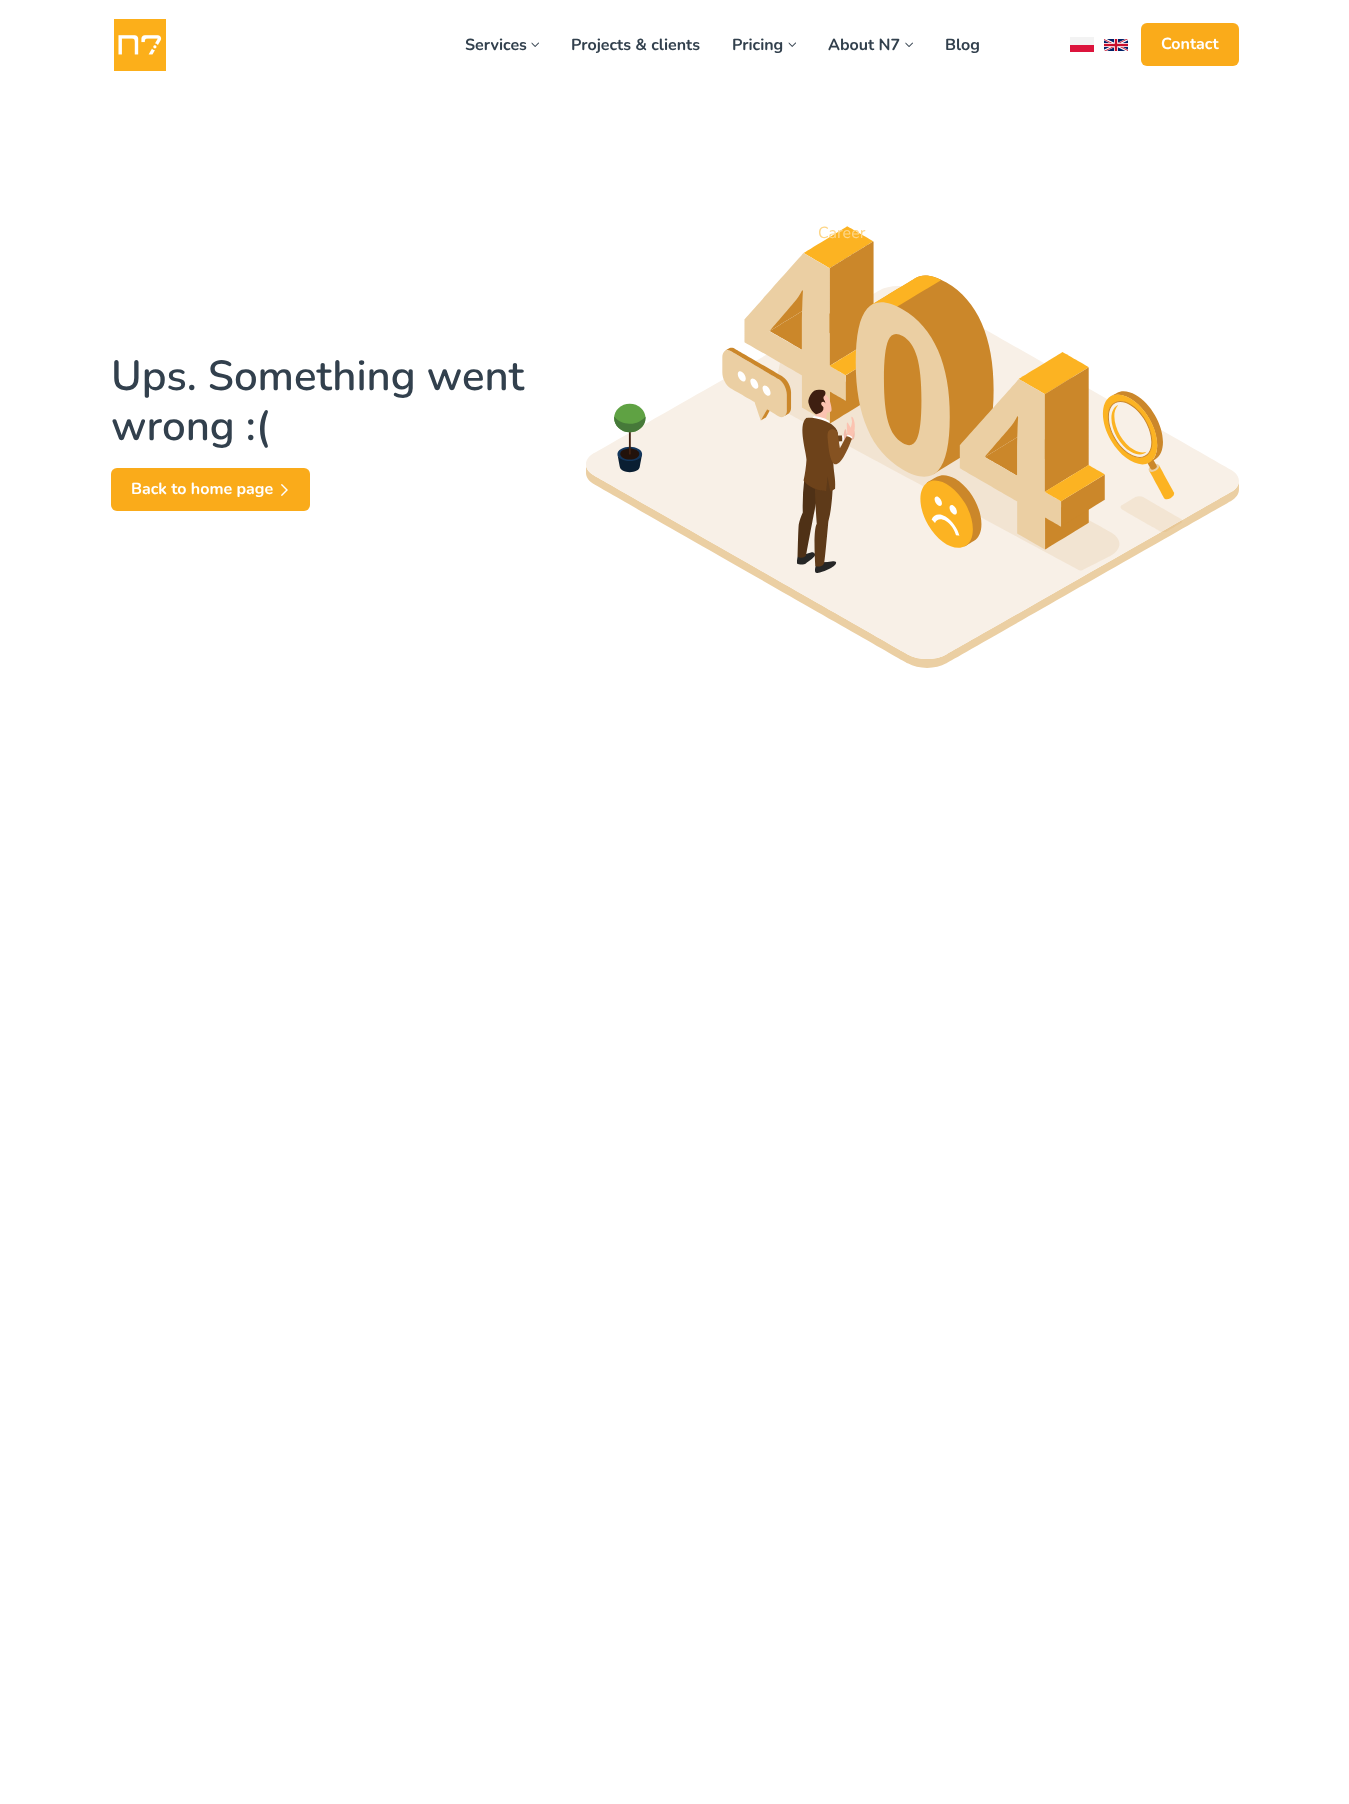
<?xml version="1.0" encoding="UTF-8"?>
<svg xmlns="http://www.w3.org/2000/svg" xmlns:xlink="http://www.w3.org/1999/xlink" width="1349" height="1804">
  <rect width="100%" height="100%" fill="#ffffff" />
  <image x="114" y="19" width="52" height="52" xlink:href="image1.png" />
  <image x="531" y="42" width="8" height="5" xlink:href="image2.png" />
  <image x="788" y="42" width="8" height="5" xlink:href="image3.png" />
  <image x="905" y="42" width="8" height="5" xlink:href="image4.png" />
  <rect x="1070" y="37" width="24" height="8" fill="#f3f3f3" />
  <rect x="1070" y="45" width="24" height="7" fill="#dc143c" />
  <image x="1104" y="39" width="24" height="12" xlink:href="image5.png" />
  <rect x="1141" y="23" width="98" height="43" rx="6" fill="#faab1a" />
  <rect x="111" y="468" width="199" height="43" rx="6" fill="#faab1a" />
  <image x="281" y="484" width="7" height="12" xlink:href="image6.png" />
  <image x="586" y="226" width="653" height="442" xlink:href="image7.png" />
  <text x="465" y="50" style="font-family: Nunito; font-size: 16px; font-weight: bold; fill: #32404d">Services</text>
  <text x="571" y="50" style="font-family: Nunito; font-size: 16px; font-weight: bold; fill: #32404d">Projects &amp; clients</text>
  <text x="732" y="50" style="font-family: Nunito; font-size: 16px; font-weight: bold; fill: #32404d">Pricing</text>
  <text x="828" y="50" style="font-family: Nunito; font-size: 16px; font-weight: bold; fill: #32404d">About N7</text>
  <text x="818" y="238" style="font-family: Nunito; font-size: 16px; fill: #fdd688">Career</text>
  <text x="945" y="50" style="font-family: Nunito; font-size: 16px; font-weight: bold; fill: #32404d">Blog</text>
  <text x="1161" y="49" style="font-family: Nunito; font-size: 16px; font-weight: bold; fill: #ffffff">Contact</text>
  <text x="111" y="390" style="font-family: Nunito; font-size: 42px; font-weight: 600; fill: #32404d">Ups. Something went</text>
  <text x="111" y="440" style="font-family: Nunito; font-size: 42px; font-weight: 600; fill: #32404d">wrong :(</text>
  <text x="131" y="494" style="font-family: Nunito; font-size: 16px; font-weight: bold; fill: #ffffff">Back to home page</text>
</svg>
